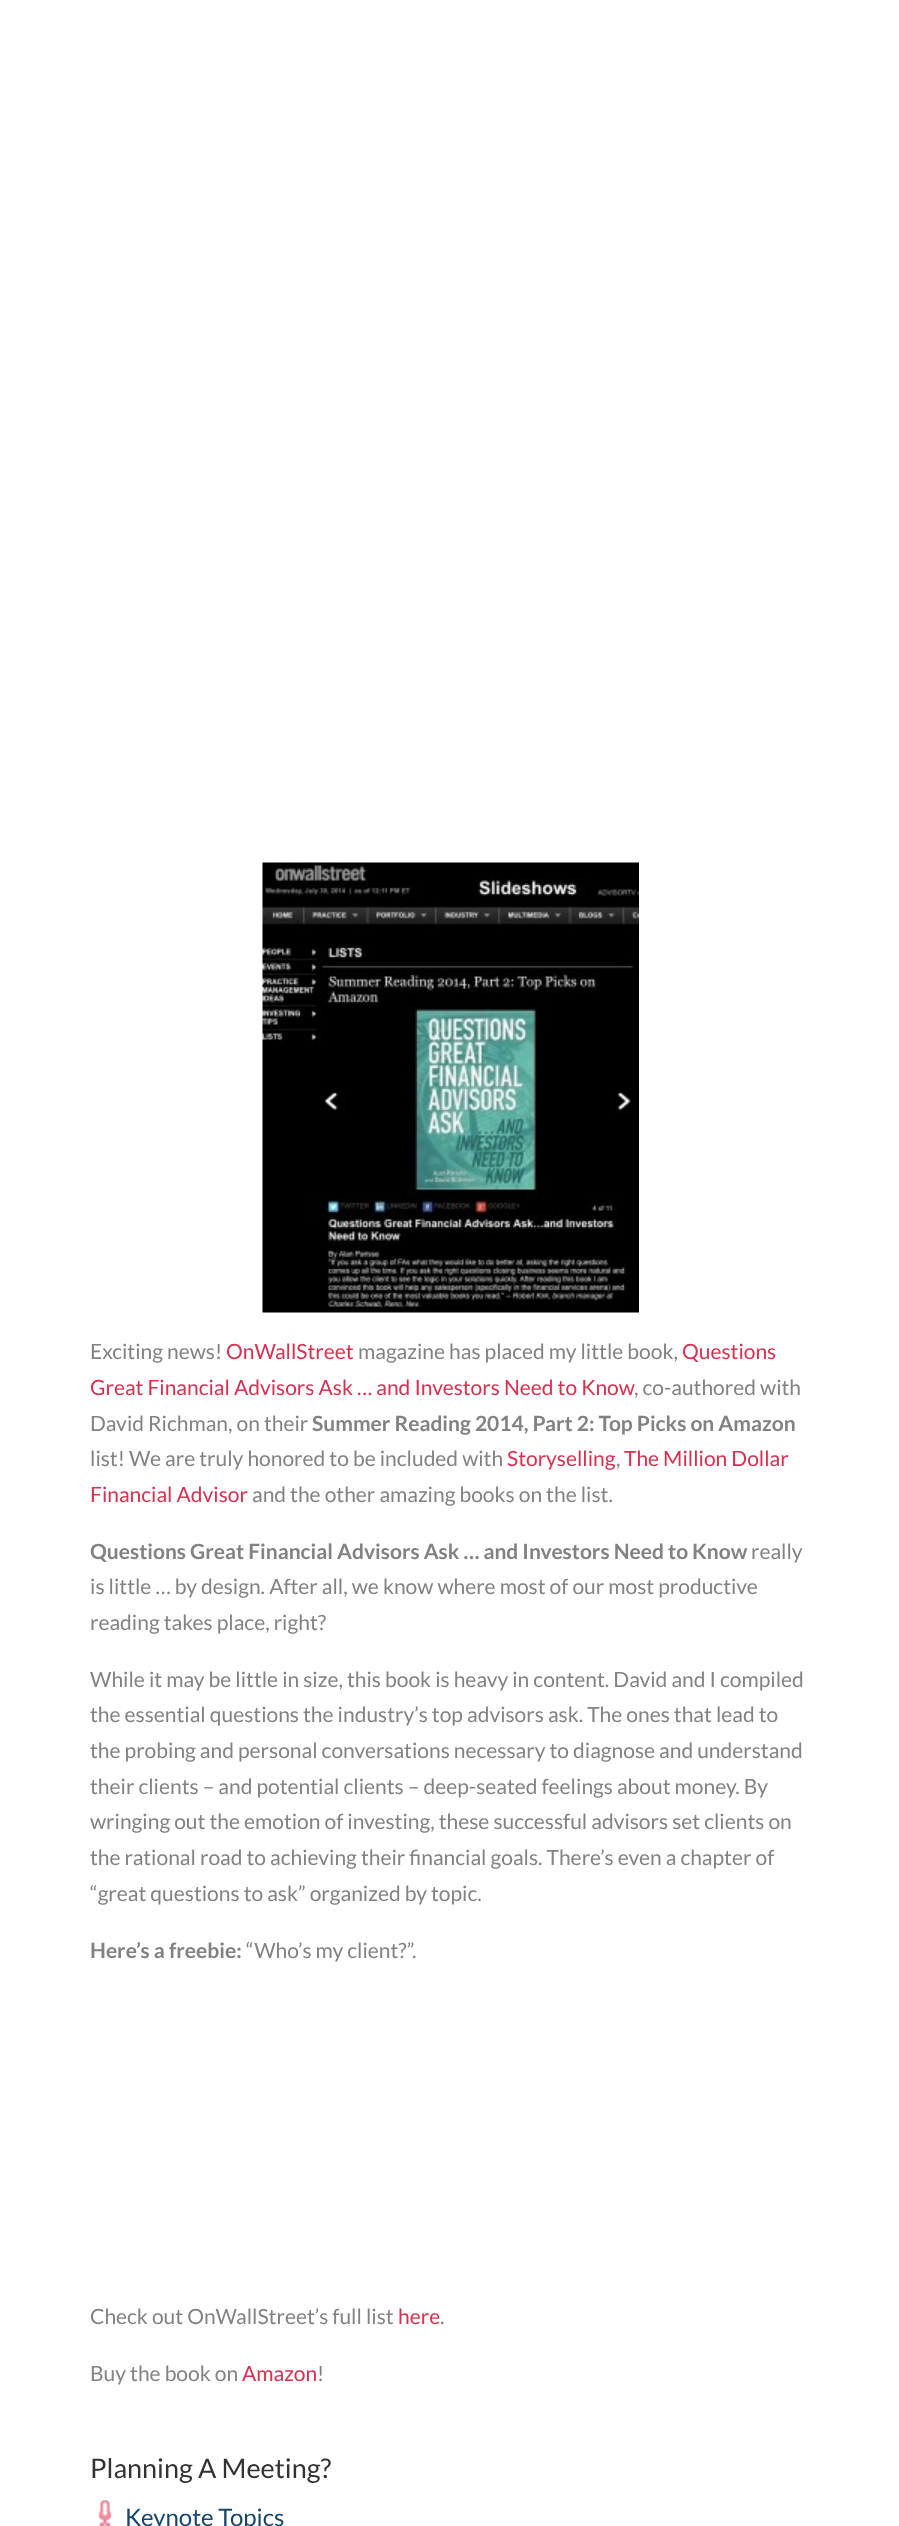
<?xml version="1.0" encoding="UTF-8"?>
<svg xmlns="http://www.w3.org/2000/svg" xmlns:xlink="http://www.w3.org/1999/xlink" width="899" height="2526">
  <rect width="100%" height="100%" fill="#ffffff" />
  <image x="262" y="862" width="377" height="451" xlink:href="image1.png" />
  <image x="98" y="2500" width="14" height="26" xlink:href="image2.png" />
  <text x="90" y="1359" style="font-family: Lato; font-size: 21px; fill: #828282">Exciting news!</text>
  <text x="226" y="1359" style="font-family: Lato; font-size: 21px; fill: #d9304f">OnWallStreet</text>
  <text x="358" y="1359" style="font-family: Lato; font-size: 21px; fill: #828282">magazine has placed my little book,</text>
  <text x="682" y="1359" style="font-family: Lato; font-size: 21px; fill: #d9304f">Questions</text>
  <text x="90" y="1395" style="font-family: Lato; font-size: 21px; fill: #d9304f">Great Financial Advisors Ask … and Investors Need to Know</text>
  <text x="634" y="1395" style="font-family: Lato; font-size: 21px; fill: #828282">, co-authored with</text>
  <text x="90" y="1431" style="font-family: Lato; font-size: 21px; fill: #828282">David Richman, on their</text>
  <text x="312" y="1431" style="font-family: Lato; font-size: 21px; font-weight: bold; fill: #828282">Summer Reading 2014, Part 2: Top Picks on Amazon</text>
  <text x="90" y="1466" style="font-family: Lato; font-size: 21px; fill: #828282">list! We are truly honored to be included with</text>
  <text x="507" y="1466" style="font-family: Lato; font-size: 21px; fill: #d9304f">Storyselling</text>
  <text x="616" y="1466" style="font-family: Lato; font-size: 21px; fill: #828282">,</text>
  <text x="624" y="1466" style="font-family: Lato; font-size: 21px; fill: #d9304f">The Million Dollar</text>
  <text x="90" y="1502" style="font-family: Lato; font-size: 21px; fill: #d9304f">Financial Advisor</text>
  <text x="252" y="1502" style="font-family: Lato; font-size: 21px; fill: #828282">and the other amazing books on the list.</text>
  <text x="90" y="1559" style="font-family: Lato; font-size: 21px; font-weight: bold; fill: #828282">Questions Great Financial Advisors Ask … and Investors Need to Know</text>
  <text x="751" y="1559" style="font-family: Lato; font-size: 21px; fill: #828282">really</text>
  <text x="90" y="1594" style="font-family: Lato; font-size: 21px; fill: #828282">is little … by design. After all, we know where most of our most productive</text>
  <text x="90" y="1630" style="font-family: Lato; font-size: 21px; fill: #828282">reading takes place, right?</text>
  <text x="90" y="1687" style="font-family: Lato; font-size: 21px; fill: #828282">While it may be little in size, this book is heavy in content. David and I compiled</text>
  <text x="90" y="1722" style="font-family: Lato; font-size: 21px; fill: #828282">the essential questions the industry’s top advisors ask. The ones that lead to</text>
  <text x="90" y="1758" style="font-family: Lato; font-size: 21px; fill: #828282">the probing and personal conversations necessary to diagnose and understand</text>
  <text x="90" y="1794" style="font-family: Lato; font-size: 21px; fill: #828282">their clients – and potential clients – deep-seated feelings about money. By</text>
  <text x="90" y="1829" style="font-family: Lato; font-size: 21px; fill: #828282">wringing out the emotion of investing, these successful advisors set clients on</text>
  <text x="90" y="1865" style="font-family: Lato; font-size: 21px; fill: #828282">the rational road to achieving their financial goals. There’s even a chapter of</text>
  <text x="90" y="1901" style="font-family: Lato; font-size: 21px; fill: #828282">“great questions to ask” organized by topic.</text>
  <text x="90" y="1958" style="font-family: Lato; font-size: 21px; font-weight: bold; fill: #828282">Here’s a freebie:</text>
  <text x="246" y="1958" style="font-family: Lato; font-size: 21px; fill: #828282">“Who’s my client?”.</text>
  <text x="90" y="2324" style="font-family: Lato; font-size: 21px; fill: #828282">Check out OnWallStreet’s full list</text>
  <text x="398" y="2324" style="font-family: Lato; font-size: 21px; fill: #d9304f">here</text>
  <text x="440" y="2324" style="font-family: Lato; font-size: 21px; fill: #828282">.</text>
  <text x="90" y="2381" style="font-family: Lato; font-size: 21px; fill: #828282">Buy the book on</text>
  <text x="242" y="2381" style="font-family: Lato; font-size: 21px; fill: #d9304f">Amazon</text>
  <text x="317" y="2381" style="font-family: Lato; font-size: 21px; fill: #828282">!</text>
  <text x="90" y="2478" style="font-family: Lato; font-size: 27px; fill: #333333">Planning A Meeting?</text>
  <text x="125" y="2526" style="font-family: Lato; font-size: 24px; fill: #15476c">Keynote Topics</text>
</svg>
